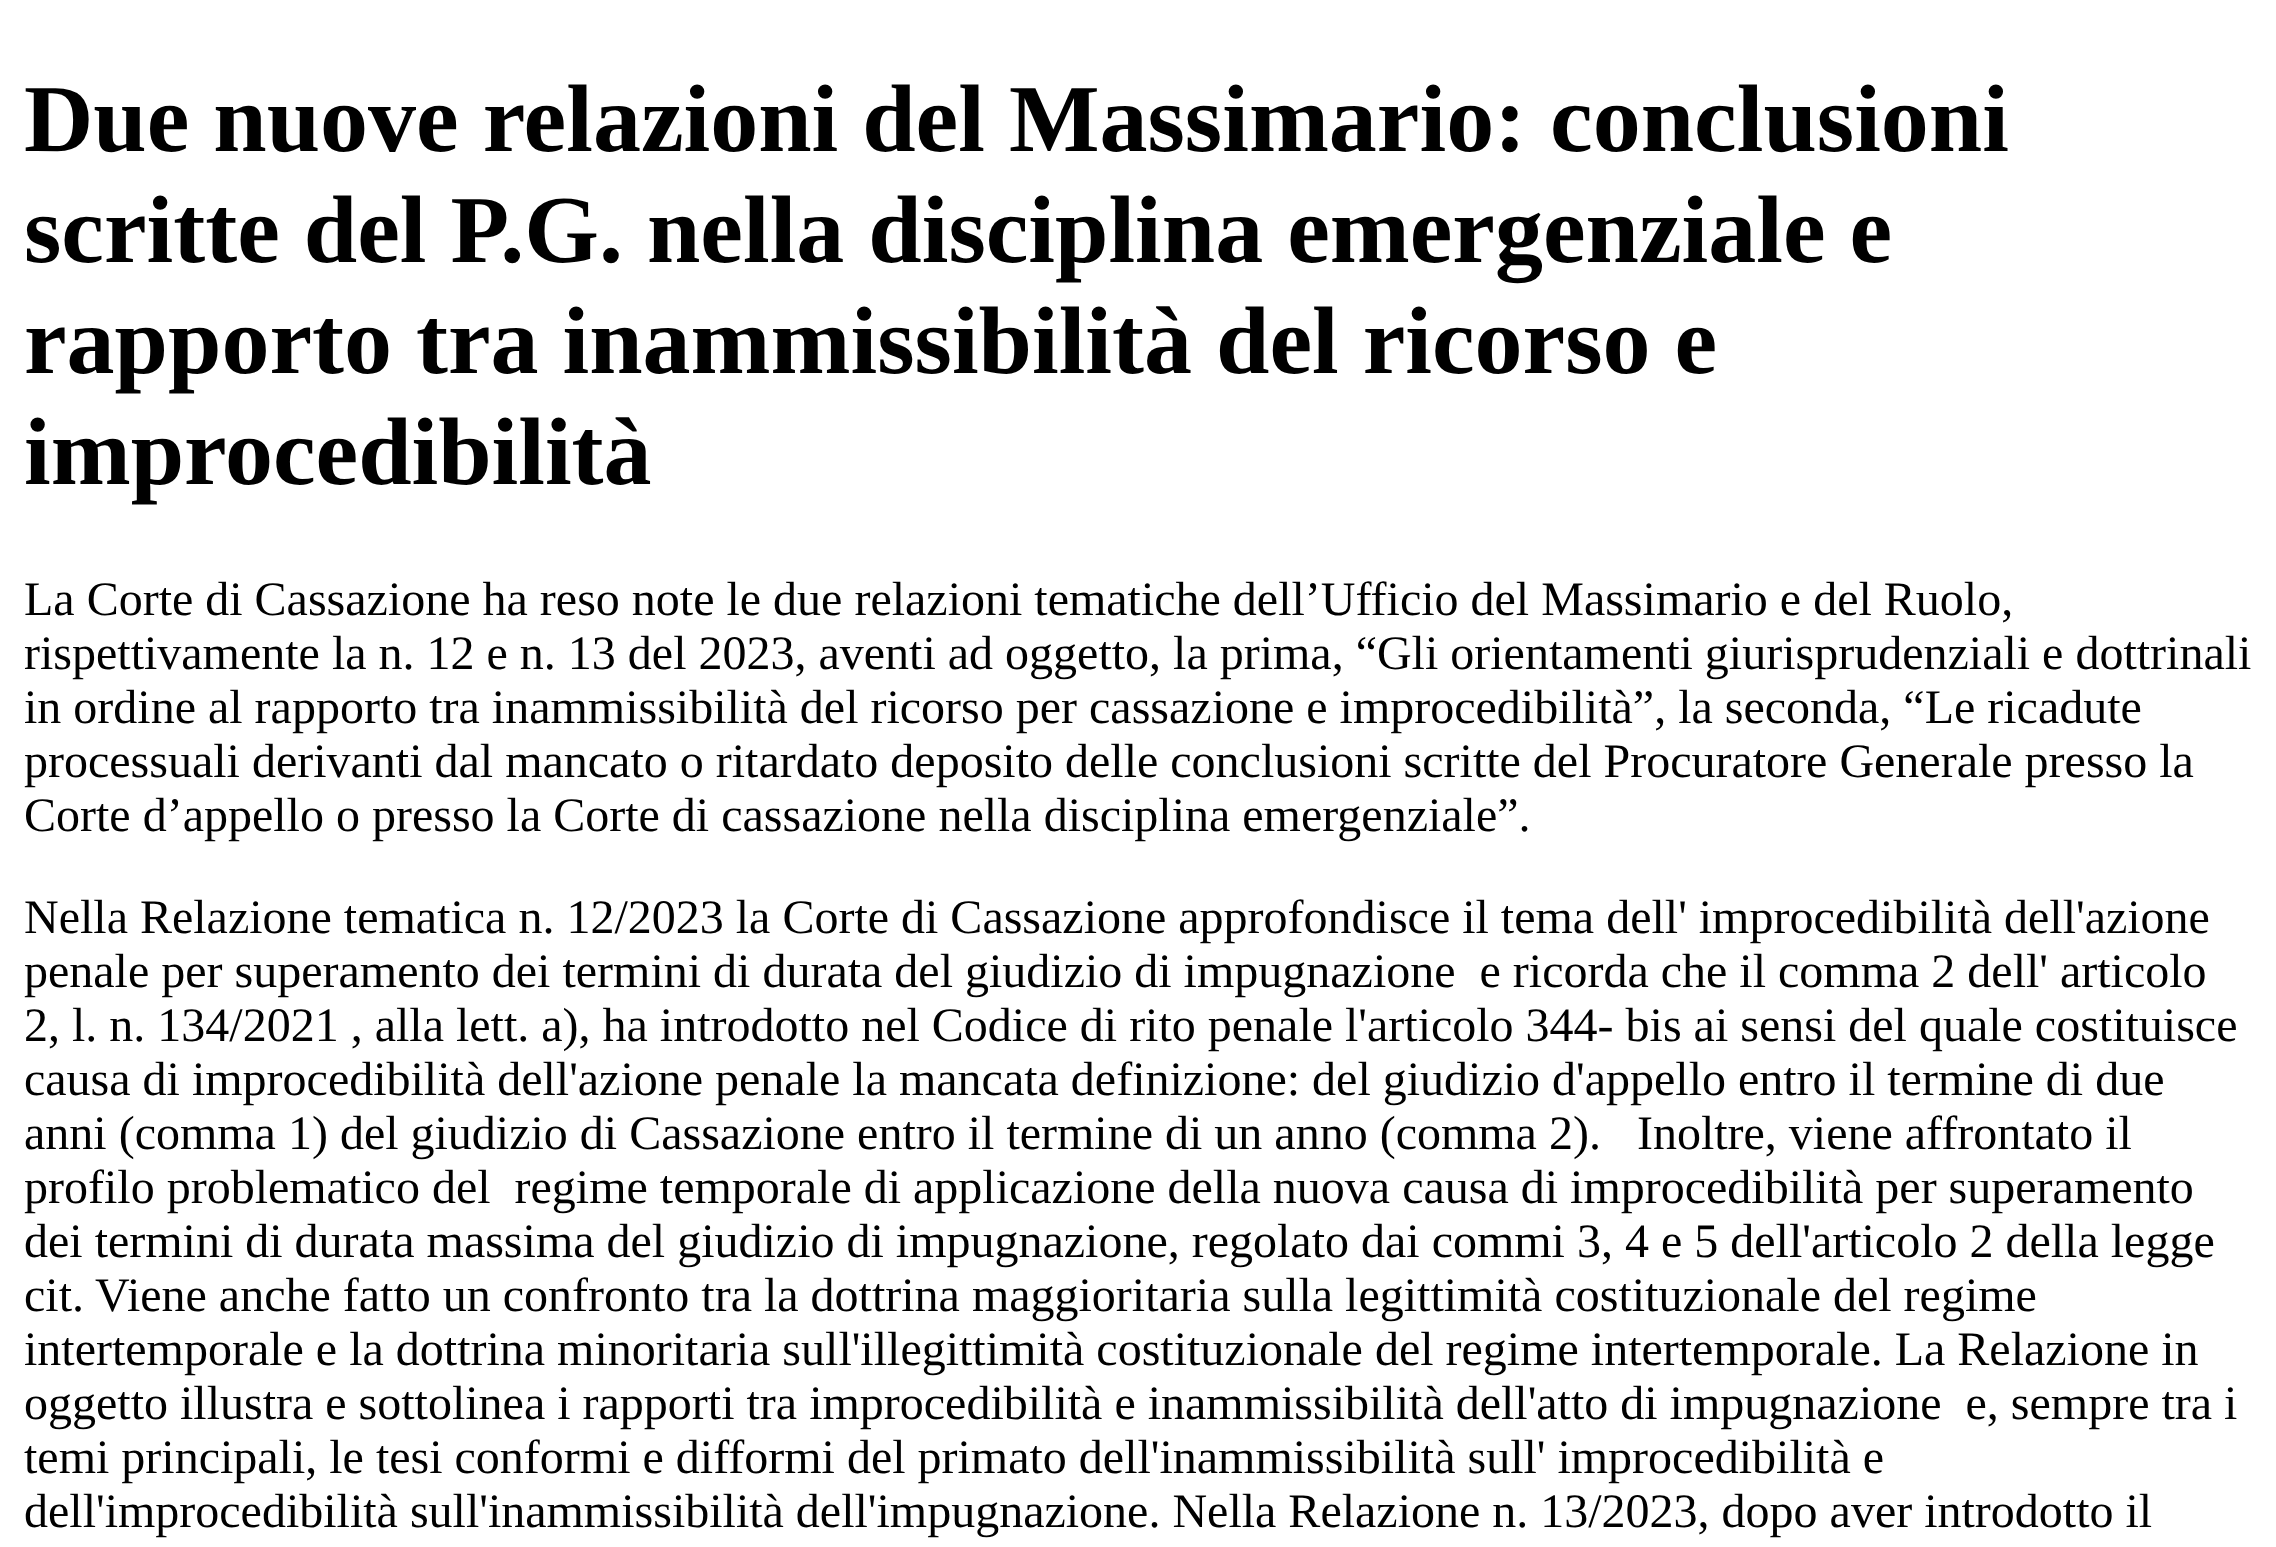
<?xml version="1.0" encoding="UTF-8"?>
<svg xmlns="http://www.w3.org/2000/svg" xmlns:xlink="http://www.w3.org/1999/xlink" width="2276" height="1547">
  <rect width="100%" height="100%" fill="#ffffff" />
  <text x="24" y="151" style="font-family: Liberation Serif; font-size: 96px; font-weight: bold; fill: #000000">Due nuove relazioni del Massimario: conclusioni</text>
  <text x="24" y="262" style="font-family: Liberation Serif; font-size: 96px; font-weight: bold; fill: #000000">scritte del P.G. nella disciplina emergenziale e</text>
  <text x="24" y="373" style="font-family: Liberation Serif; font-size: 96px; font-weight: bold; fill: #000000">rapporto tra inammissibilità del ricorso e</text>
  <text x="24" y="484" style="font-family: Liberation Serif; font-size: 96px; font-weight: bold; fill: #000000">improcedibilità</text>
  <text x="24" y="615" style="font-family: Liberation Serif; font-size: 48px; fill: #000000">La Corte di Cassazione ha reso note le due relazioni tematiche dell’Ufficio del Massimario e del Ruolo,</text>
  <text x="24" y="669" style="font-family: Liberation Serif; font-size: 48px; fill: #000000">rispettivamente la n. 12 e n. 13 del 2023, aventi ad oggetto, la prima, “Gli orientamenti giurisprudenziali e dottrinali</text>
  <text x="24" y="723" style="font-family: Liberation Serif; font-size: 48px; fill: #000000">in ordine al rapporto tra inammissibilità del ricorso per cassazione e improcedibilità”, la seconda, “Le ricadute</text>
  <text x="24" y="777" style="font-family: Liberation Serif; font-size: 48px; fill: #000000">processuali derivanti dal mancato o ritardato deposito delle conclusioni scritte del Procuratore Generale presso la</text>
  <text x="24" y="831" style="font-family: Liberation Serif; font-size: 48px; fill: #000000">Corte d’appello o presso la Corte di cassazione nella disciplina emergenziale”.</text>
  <text x="24" y="933" style="font-family: Liberation Serif; font-size: 48px; fill: #000000">Nella Relazione tematica n. 12/2023 la Corte di Cassazione approfondisce il tema dell' improcedibilità dell'azione</text>
  <text x="24" y="987" style="font-family: Liberation Serif; font-size: 48px; fill: #000000" xml:space="preserve">penale per superamento dei termini di durata del giudizio di impugnazione  e ricorda che il comma 2 dell' articolo</text>
  <text x="24" y="1041" style="font-family: Liberation Serif; font-size: 48px; fill: #000000">2, l. n. 134/2021 , alla lett. a), ha introdotto nel Codice di rito penale l'articolo 344- bis ai sensi del quale costituisce</text>
  <text x="24" y="1095" style="font-family: Liberation Serif; font-size: 48px; fill: #000000">causa di improcedibilità dell'azione penale la mancata definizione: del giudizio d'appello entro il termine di due</text>
  <text x="24" y="1149" style="font-family: Liberation Serif; font-size: 48px; fill: #000000" xml:space="preserve">anni (comma 1) del giudizio di Cassazione entro il termine di un anno (comma 2).   Inoltre, viene affrontato il</text>
  <text x="24" y="1203" style="font-family: Liberation Serif; font-size: 48px; fill: #000000" xml:space="preserve">profilo problematico del  regime temporale di applicazione della nuova causa di improcedibilità per superamento</text>
  <text x="24" y="1257" style="font-family: Liberation Serif; font-size: 48px; fill: #000000">dei termini di durata massima del giudizio di impugnazione, regolato dai commi 3, 4 e 5 dell'articolo 2 della legge</text>
  <text x="24" y="1311" style="font-family: Liberation Serif; font-size: 48px; fill: #000000">cit. Viene anche fatto un confronto tra la dottrina maggioritaria sulla legittimità costituzionale del regime</text>
  <text x="24" y="1365" style="font-family: Liberation Serif; font-size: 48px; fill: #000000">intertemporale e la dottrina minoritaria sull'illegittimità costituzionale del regime intertemporale. La Relazione in</text>
  <text x="24" y="1419" style="font-family: Liberation Serif; font-size: 48px; fill: #000000" xml:space="preserve">oggetto illustra e sottolinea i rapporti tra improcedibilità e inammissibilità dell'atto di impugnazione  e, sempre tra i</text>
  <text x="24" y="1473" style="font-family: Liberation Serif; font-size: 48px; fill: #000000">temi principali, le tesi conformi e difformi del primato dell'inammissibilità sull' improcedibilità e</text>
  <text x="24" y="1527" style="font-family: Liberation Serif; font-size: 48px; fill: #000000">dell'improcedibilità sull'inammissibilità dell'impugnazione. Nella Relazione n. 13/2023, dopo aver introdotto il</text>
</svg>
